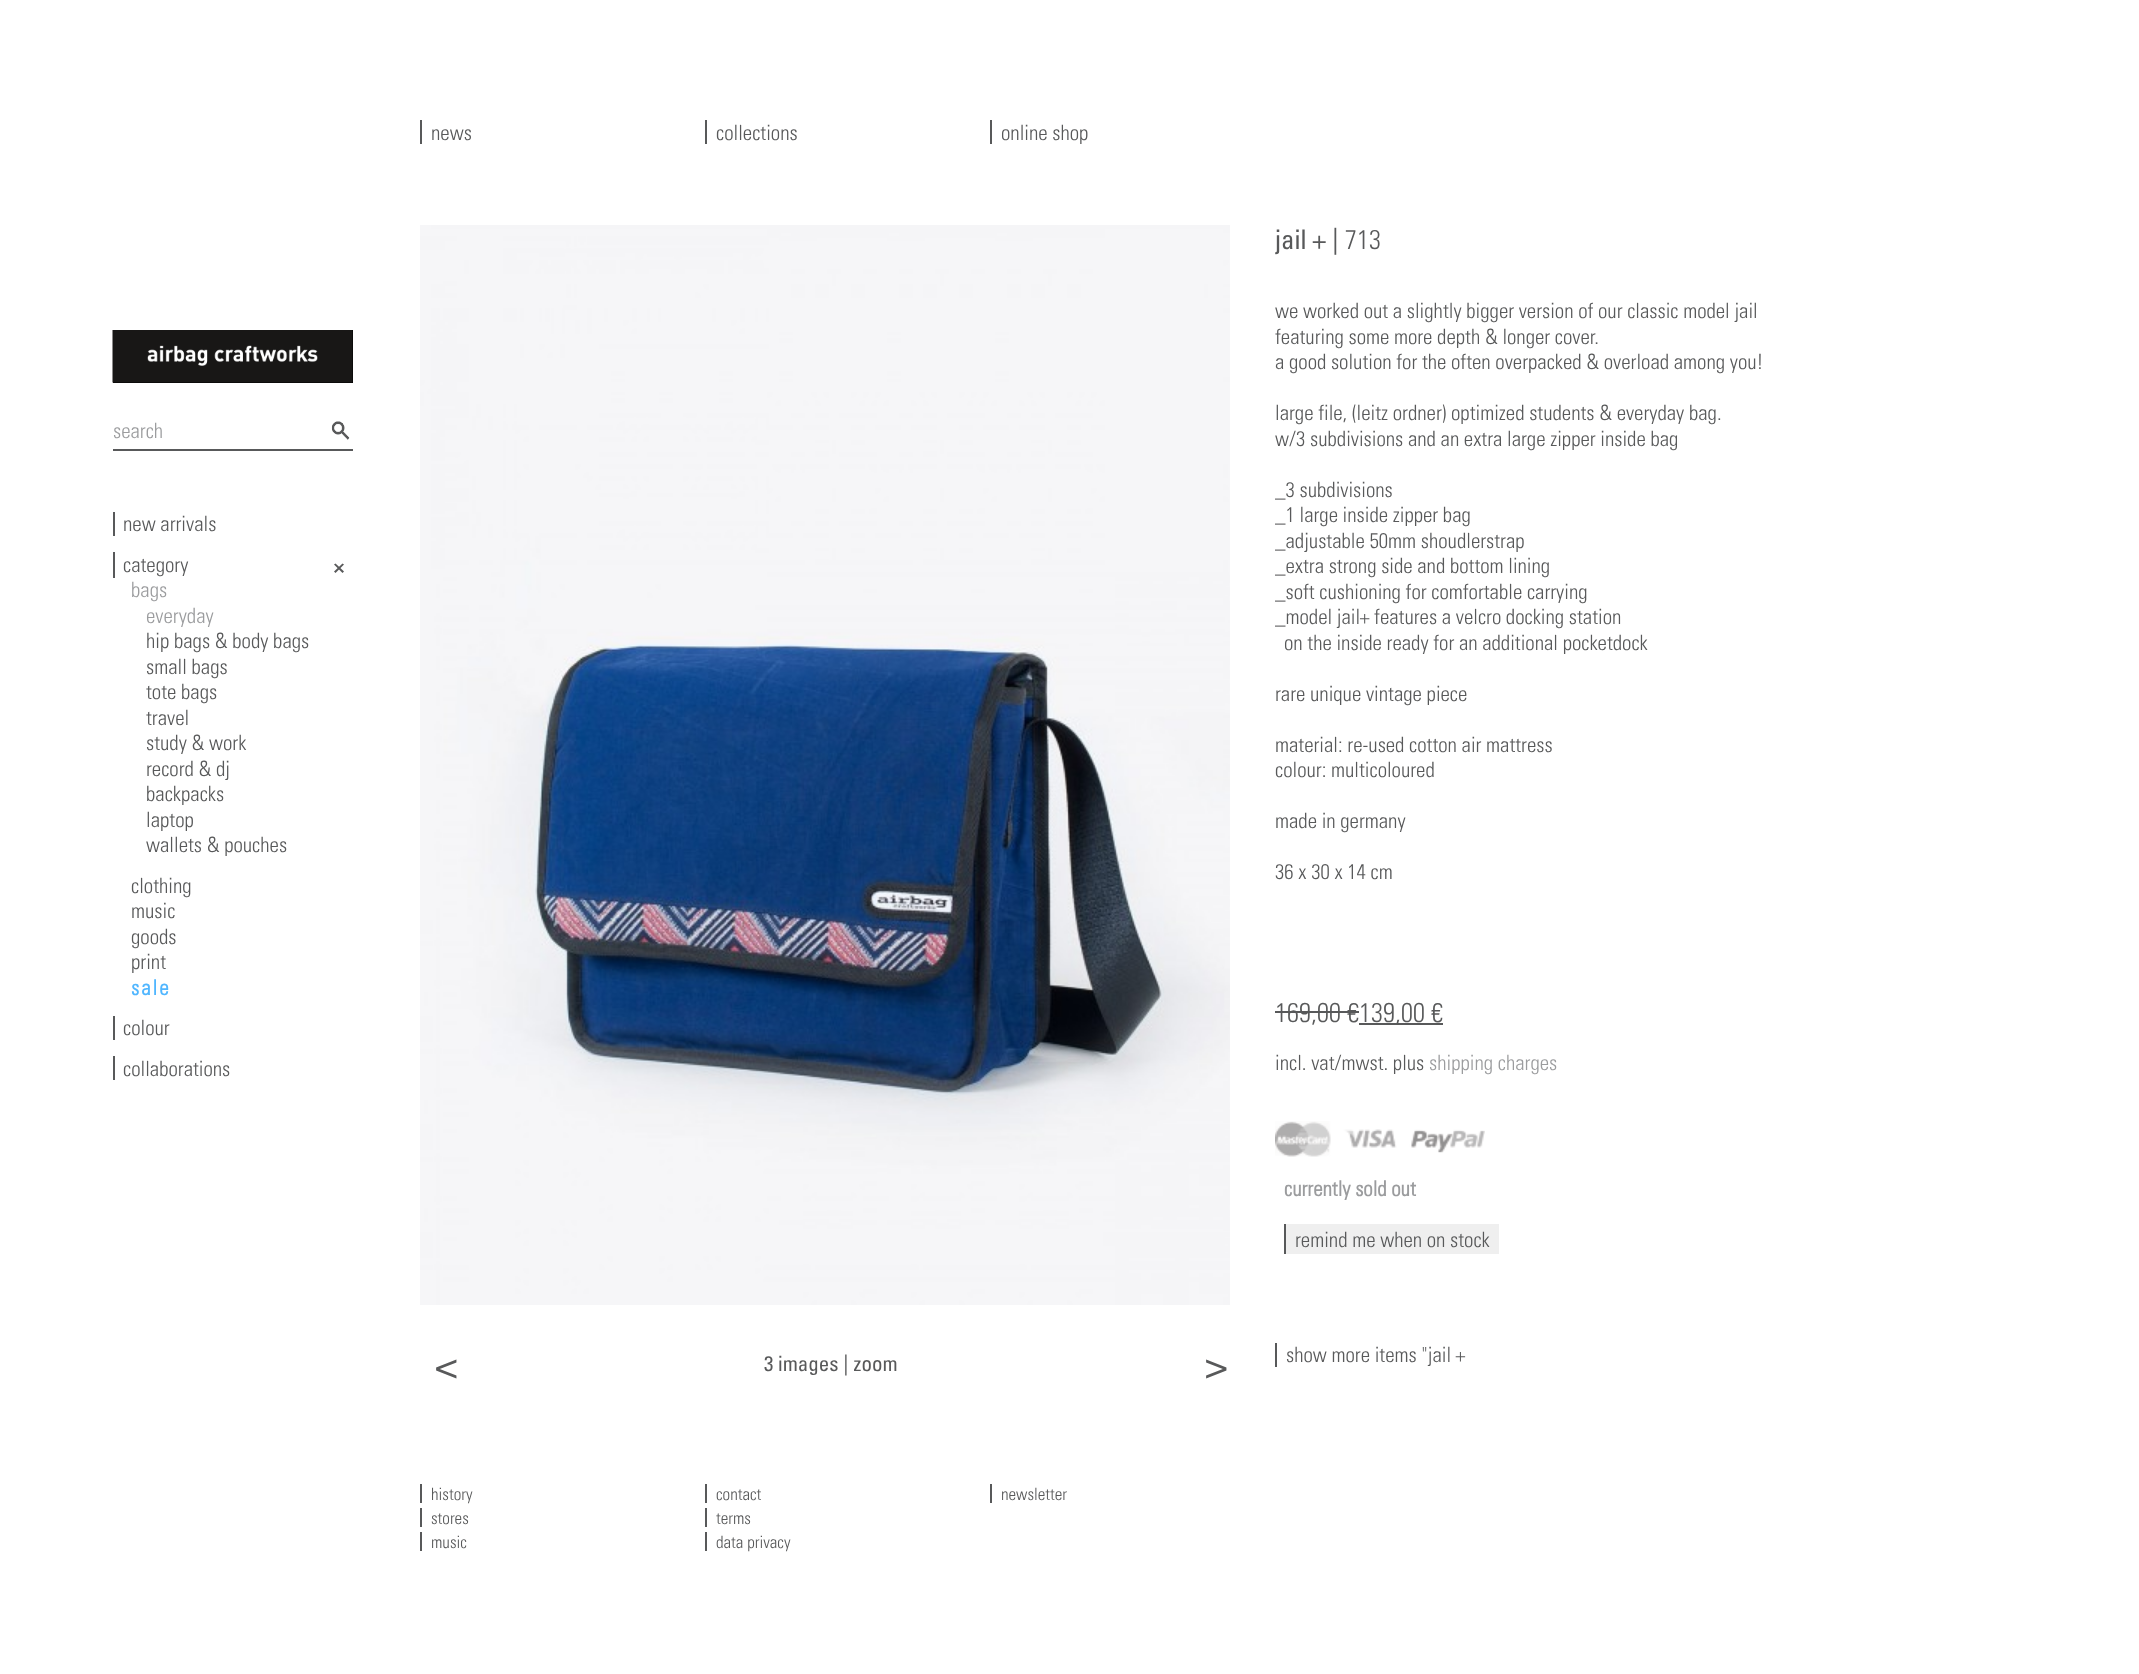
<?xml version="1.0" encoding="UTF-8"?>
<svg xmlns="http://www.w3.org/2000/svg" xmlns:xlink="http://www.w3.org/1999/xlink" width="2139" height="1674">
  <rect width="100%" height="100%" fill="#ffffff" />
  <rect x="420" y="120" width="2" height="24" fill="#58595a" />
  <rect x="705" y="120" width="2" height="24" fill="#58595a" />
  <rect x="990" y="120" width="2" height="24" fill="#58595a" />
  <rect x="113" y="449" width="240" height="2" fill="#58595a" />
  <image x="331" y="421" width="19" height="19" xlink:href="image1.png" />
  <rect x="113" y="512" width="2" height="24" fill="#58595a" />
  <rect x="113" y="552" width="2" height="26" fill="#58595a" />
  <path d="M 334 571.5 l 8.5 -8 l 1.5 1 l -8.5 8.5 z" fill="#58595a" />
  <path d="M 335.5 563.5 l 8.5 8 l -1.5 1.5 l -8.5 -8.5 z" fill="#58595a" />
  <rect x="113" y="1016" width="2" height="24" fill="#58595a" />
  <rect x="113" y="1056" width="2" height="24" fill="#58595a" />
  <rect x="113" y="330" width="240" height="53" fill="#000000" />
  <image x="112" y="330" width="241" height="53" xlink:href="image2.png" />
  <image x="420" y="225" width="810" height="1080" xlink:href="image3.png" />
  <rect x="1275" y="1011" width="84" height="2" fill="#58595a" />
  <rect x="1359" y="1023" width="84" height="2" fill="#58595a" />
  <image x="1275" y="1121" width="210" height="36" xlink:href="image4.png" />
  <rect x="1286" y="1224" width="213" height="30" fill="#efefef" />
  <rect x="1284" y="1224" width="2" height="30" fill="#58595a" />
  <rect x="1275" y="1343" width="2" height="24" fill="#58595a" />
  <rect x="420" y="1484" width="2" height="19" fill="#58595a" />
  <rect x="420" y="1508" width="2" height="19" fill="#58595a" />
  <rect x="420" y="1532" width="2" height="19" fill="#58595a" />
  <rect x="705" y="1484" width="2" height="19" fill="#58595a" />
  <rect x="705" y="1508" width="2" height="19" fill="#58595a" />
  <rect x="705" y="1532" width="2" height="19" fill="#58595a" />
  <rect x="990" y="1484" width="2" height="19" fill="#58595a" />
  <text x="431" y="140" style="font-family: 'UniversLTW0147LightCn'; font-size: 21px; font-weight: 300; fill: #58595a">news</text>
  <text x="716" y="140" style="font-family: 'UniversLTW0147LightCn'; font-size: 21px; font-weight: 300; fill: #58595a">collections</text>
  <text x="1001" y="140" style="font-family: 'UniversLTW0147LightCn'; font-size: 21px; font-weight: 300; fill: #58595a">online shop</text>
  <text x="113" y="438" style="font-family: 'UniversLTW0147LightCn'; font-size: 21px; font-weight: 300; fill: #9b9c9e">search</text>
  <text x="123" y="531" style="font-family: 'UniversLTW0147LightCn'; font-size: 21px; font-weight: 300; fill: #58595a">new arrivals</text>
  <text x="123" y="572" style="font-family: 'UniversLTW0147LightCn'; font-size: 21px; font-weight: 300; fill: #58595a">category</text>
  <text x="131" y="597" style="font-family: 'UniversLTW0147LightCn'; font-size: 21px; font-weight: 300; fill: #9b9c9e">bags</text>
  <text x="146" y="623" style="font-family: 'UniversLTW0147LightCn'; font-size: 21px; font-weight: 300; fill: #9b9c9e">everyday</text>
  <text x="146" y="648" style="font-family: 'UniversLTW0147LightCn'; font-size: 21px; font-weight: 300; fill: #58595a">hip bags &amp; body bags</text>
  <text x="146" y="674" style="font-family: 'UniversLTW0147LightCn'; font-size: 21px; font-weight: 300; fill: #58595a">small bags</text>
  <text x="146" y="699" style="font-family: 'UniversLTW0147LightCn'; font-size: 21px; font-weight: 300; fill: #58595a">tote bags</text>
  <text x="146" y="725" style="font-family: 'UniversLTW0147LightCn'; font-size: 21px; font-weight: 300; fill: #58595a">travel</text>
  <text x="146" y="750" style="font-family: 'UniversLTW0147LightCn'; font-size: 21px; font-weight: 300; fill: #58595a">study &amp; work</text>
  <text x="146" y="776" style="font-family: 'UniversLTW0147LightCn'; font-size: 21px; font-weight: 300; fill: #58595a">record &amp; dj</text>
  <text x="146" y="801" style="font-family: 'UniversLTW0147LightCn'; font-size: 21px; font-weight: 300; fill: #58595a">backpacks</text>
  <text x="146" y="827" style="font-family: 'UniversLTW0147LightCn'; font-size: 21px; font-weight: 300; fill: #58595a">laptop</text>
  <text x="146" y="852" style="font-family: 'UniversLTW0147LightCn'; font-size: 21px; font-weight: 300; fill: #58595a">wallets &amp; pouches</text>
  <text x="131" y="893" style="font-family: 'UniversLTW0147LightCn'; font-size: 21px; font-weight: 300; fill: #58595a">clothing</text>
  <text x="131" y="918" style="font-family: 'UniversLTW0147LightCn'; font-size: 21px; font-weight: 300; fill: #58595a">music</text>
  <text x="131" y="944" style="font-family: 'UniversLTW0147LightCn'; font-size: 21px; font-weight: 300; fill: #58595a">goods</text>
  <text x="131" y="969" style="font-family: 'UniversLTW0147LightCn'; font-size: 21px; font-weight: 300; fill: #58595a">print</text>
  <text x="131" y="995" style="font-family: 'UniversLTW0147LightCn'; font-size: 21px; font-weight: bold; letter-spacing: 2px; fill: #50b6ff">sale</text>
  <text x="123" y="1035" style="font-family: 'UniversLTW0147LightCn'; font-size: 21px; font-weight: 300; fill: #58595a">colour</text>
  <text x="123" y="1076" style="font-family: 'UniversLTW0147LightCn'; font-size: 21px; font-weight: 300; fill: #58595a">collaborations</text>
  <text x="435" y="1380" style="font-family: 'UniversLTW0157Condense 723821'; font-size: 45px; fill: #58595a">&lt;</text>
  <text x="764" y="1371" style="font-family: 'UniversLTW0157Condense 723821'; font-size: 21px; fill: #58595a">3 images | zoom</text>
  <text x="1205" y="1380" style="font-family: 'UniversLTW0157Condense 723821'; font-size: 45px; fill: #58595a">&gt;</text>
  <text x="1275" y="249" style="font-family: 'UniversLTW0157Condense 723821'; font-size: 27px; fill: #58595a">jail + |</text>
  <text x="1345" y="249" style="font-family: 'UniversLTW0147LightCn'; font-size: 27px; font-weight: 300; fill: #58595a">713</text>
  <text x="1275" y="318" style="font-family: 'UniversLTW0147LightCn'; font-size: 21px; font-weight: 300; fill: #58595a">we worked out a slightly bigger version of our classic model jail</text>
  <text x="1275" y="344" style="font-family: 'UniversLTW0147LightCn'; font-size: 21px; font-weight: 300; fill: #58595a">featuring some more depth &amp; longer cover.</text>
  <text x="1275" y="369" style="font-family: 'UniversLTW0147LightCn'; font-size: 21px; font-weight: 300; fill: #58595a">a good solution for the often overpacked &amp; overload among you!</text>
  <text x="1275" y="420" style="font-family: 'UniversLTW0147LightCn'; font-size: 21px; font-weight: 300; fill: #58595a">large file, (leitz ordner) optimized students &amp; everyday bag.</text>
  <text x="1275" y="446" style="font-family: 'UniversLTW0147LightCn'; font-size: 21px; font-weight: 300; fill: #58595a">w/3 subdivisions and an extra large zipper inside bag</text>
  <text x="1275" y="497" style="font-family: 'UniversLTW0147LightCn'; font-size: 21px; font-weight: 300; fill: #58595a">_3 subdivisions</text>
  <text x="1275" y="522" style="font-family: 'UniversLTW0147LightCn'; font-size: 21px; font-weight: 300; fill: #58595a">_1 large inside zipper bag</text>
  <text x="1275" y="548" style="font-family: 'UniversLTW0147LightCn'; font-size: 21px; font-weight: 300; fill: #58595a">_adjustable 50mm shoudlerstrap</text>
  <text x="1275" y="573" style="font-family: 'UniversLTW0147LightCn'; font-size: 21px; font-weight: 300; fill: #58595a">_extra strong side and bottom lining</text>
  <text x="1275" y="599" style="font-family: 'UniversLTW0147LightCn'; font-size: 21px; font-weight: 300; fill: #58595a">_soft cushioning for comfortable carrying</text>
  <text x="1275" y="624" style="font-family: 'UniversLTW0147LightCn'; font-size: 21px; font-weight: 300; fill: #58595a">_model jail+ features a velcro docking station</text>
  <text x="1284" y="650" style="font-family: 'UniversLTW0147LightCn'; font-size: 21px; font-weight: 300; fill: #58595a">on the inside ready for an additional pocketdock</text>
  <text x="1275" y="701" style="font-family: 'UniversLTW0147LightCn'; font-size: 21px; font-weight: 300; fill: #58595a">rare unique vintage piece</text>
  <text x="1275" y="752" style="font-family: 'UniversLTW0147LightCn'; font-size: 21px; font-weight: 300; fill: #58595a">material: re-used cotton air mattress</text>
  <text x="1275" y="777" style="font-family: 'UniversLTW0147LightCn'; font-size: 21px; font-weight: 300; fill: #58595a">colour: multicoloured</text>
  <text x="1275" y="828" style="font-family: 'UniversLTW0147LightCn'; font-size: 21px; font-weight: 300; fill: #58595a">made in germany</text>
  <text x="1275" y="879" style="font-family: 'UniversLTW0147LightCn'; font-size: 21px; font-weight: 300; fill: #58595a">36 x 30 x 14 cm</text>
  <text x="1275" y="1022" style="font-family: 'UniversLTW0147LightCn'; font-size: 27px; font-weight: 300; fill: #58595a">169,00 €</text>
  <text x="1359" y="1022" style="font-family: 'UniversLTW0147LightCn'; font-size: 27px; font-weight: 300; fill: #58595a">139,00 €</text>
  <text x="1275" y="1070" style="font-family: 'UniversLTW0147LightCn'; font-size: 21px; font-weight: 300; fill: #58595a">incl. vat/mwst. plus</text>
  <text x="1429" y="1070" style="font-family: 'UniversLTW0147LightCn'; font-size: 21px; font-weight: 300; fill: #9b9c9e">shipping charges</text>
  <text x="1284" y="1196" style="font-family: 'UniversLTW0147LightCn'; font-size: 21px; font-weight: bold; fill: #9b9c9e">currently sold out</text>
  <text x="1295" y="1247" style="font-family: 'UniversLTW0147LightCn'; font-size: 21px; font-weight: 300; fill: #58595a">remind me when on stock</text>
  <text x="1286" y="1362" style="font-family: 'UniversLTW0147LightCn'; font-size: 21px; font-weight: 300; fill: #58595a">show more items "jail +</text>
  <text x="431" y="1500" style="font-family: 'UniversLTW0147LightCn'; font-size: 17px; font-weight: 300; fill: #58595a">history</text>
  <text x="431" y="1524" style="font-family: 'UniversLTW0147LightCn'; font-size: 17px; font-weight: 300; fill: #58595a">stores</text>
  <text x="431" y="1548" style="font-family: 'UniversLTW0147LightCn'; font-size: 17px; font-weight: 300; fill: #58595a">music</text>
  <text x="716" y="1500" style="font-family: 'UniversLTW0147LightCn'; font-size: 17px; font-weight: 300; fill: #58595a">contact</text>
  <text x="716" y="1524" style="font-family: 'UniversLTW0147LightCn'; font-size: 17px; font-weight: 300; fill: #58595a">terms</text>
  <text x="716" y="1548" style="font-family: 'UniversLTW0147LightCn'; font-size: 17px; font-weight: 300; fill: #58595a">data privacy</text>
  <text x="1001" y="1500" style="font-family: 'UniversLTW0147LightCn'; font-size: 17px; font-weight: 300; fill: #58595a">newsletter</text>
</svg>
